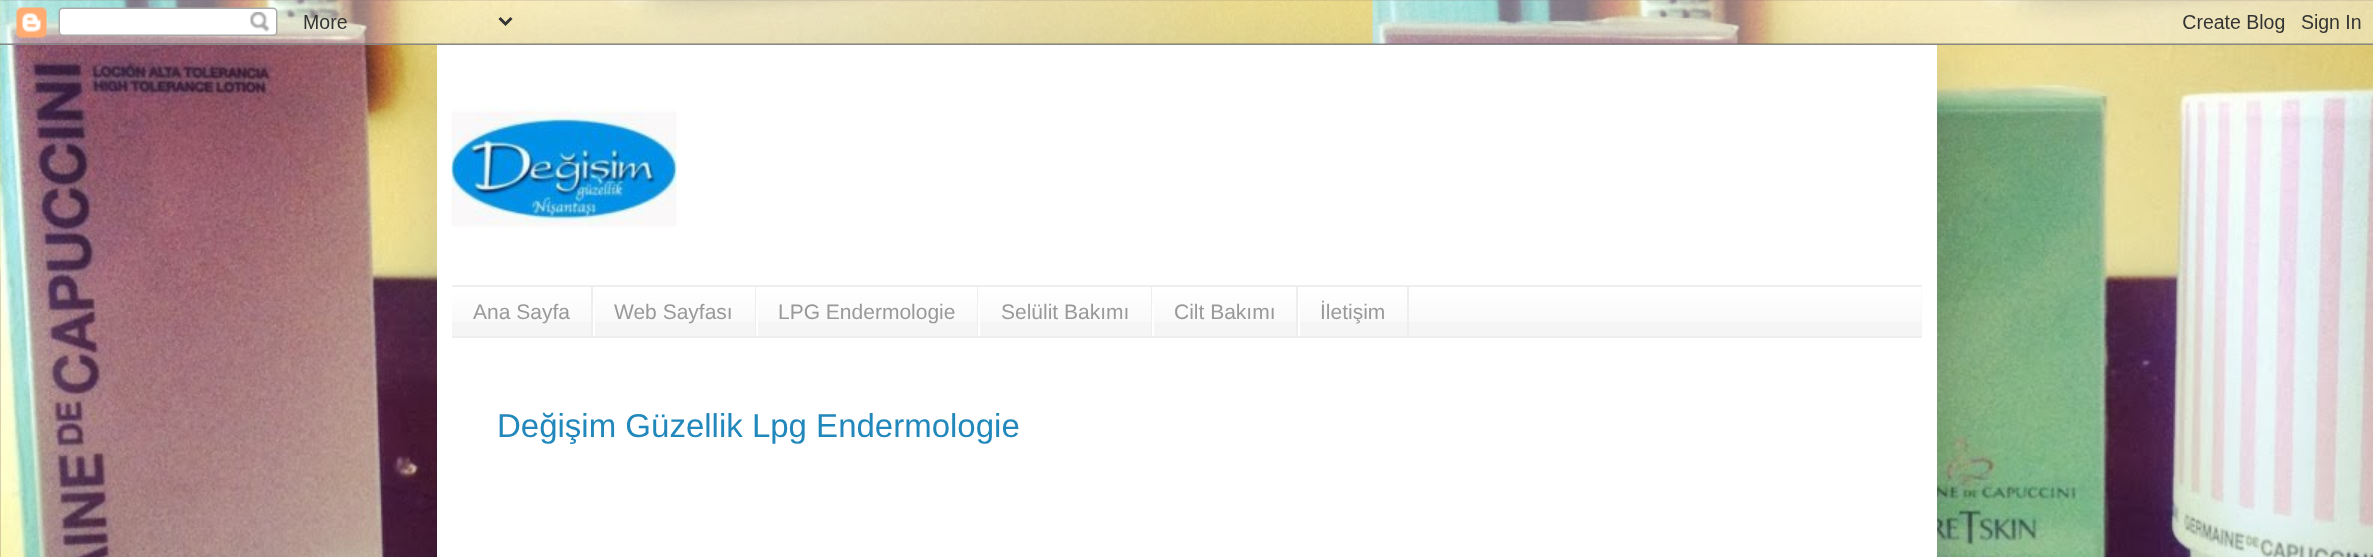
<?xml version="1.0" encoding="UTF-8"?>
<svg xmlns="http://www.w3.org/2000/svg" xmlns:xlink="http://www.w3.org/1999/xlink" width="2373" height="557">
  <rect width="100%" height="100%" fill="#ffffff" />
  <image x="0" y="0" width="2373" height="557" xlink:href="image1.png" />
  <rect x="437" y="45" width="1500" height="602" fill="#000000" fill-opacity="0.15" filter="blur(30px)" />
  <image x="0" y="0" width="2373" height="45" xlink:href="image2.png" />
  <rect x="437" y="45" width="1500" height="512" fill="#ffffff" />
  <image x="451" y="107" width="226" height="121" xlink:href="image3.png" />
  <rect x="452" y="287" width="1470" height="49" fill="#f5f5f5" />
  <image x="452" y="287" width="1470" height="35" xlink:href="image4.png" />
  <rect x="452" y="285" width="1470" height="2" fill="#eeeeee" />
  <rect x="452" y="336" width="1470" height="2" fill="#eeeeee" />
  <rect x="591" y="287" width="2" height="49" fill="#eeeeee" />
  <rect x="755" y="287" width="1" height="49" fill="#eeeeee" />
  <rect x="593" y="303" width="2" height="33" fill="#ffffff" />
  <rect x="977" y="287" width="1" height="49" fill="#eeeeee" />
  <rect x="756" y="303" width="2" height="33" fill="#ffffff" />
  <rect x="1151" y="287" width="1" height="49" fill="#eeeeee" />
  <rect x="978" y="303" width="2" height="33" fill="#ffffff" />
  <rect x="1296" y="287" width="2" height="49" fill="#eeeeee" />
  <rect x="1152" y="303" width="2" height="33" fill="#ffffff" />
  <rect x="1407" y="287" width="2" height="49" fill="#eeeeee" />
  <rect x="1298" y="303" width="2" height="33" fill="#ffffff" />
  <text x="473" y="319" style="font-family: Liberation Sans; font-size: 21px; fill: #999999">Ana Sayfa</text>
  <text x="614" y="319" style="font-family: Liberation Sans; font-size: 21px; fill: #999999">Web Sayfası</text>
  <text x="778" y="319" style="font-family: Liberation Sans; font-size: 21px; fill: #999999">LPG Endermologie</text>
  <text x="1001" y="319" style="font-family: Liberation Sans; font-size: 21px; fill: #999999">Selülit Bakımı</text>
  <text x="1174" y="319" style="font-family: Liberation Sans; font-size: 21px; fill: #999999">Cilt Bakımı</text>
  <text x="1320" y="319" style="font-family: Liberation Sans; font-size: 21px; fill: #999999">İletişim</text>
  <text x="497" y="437" style="font-family: Liberation Sans; font-size: 33px; fill: #2288bb">Değişim Güzellik Lpg Endermologie</text>
</svg>
